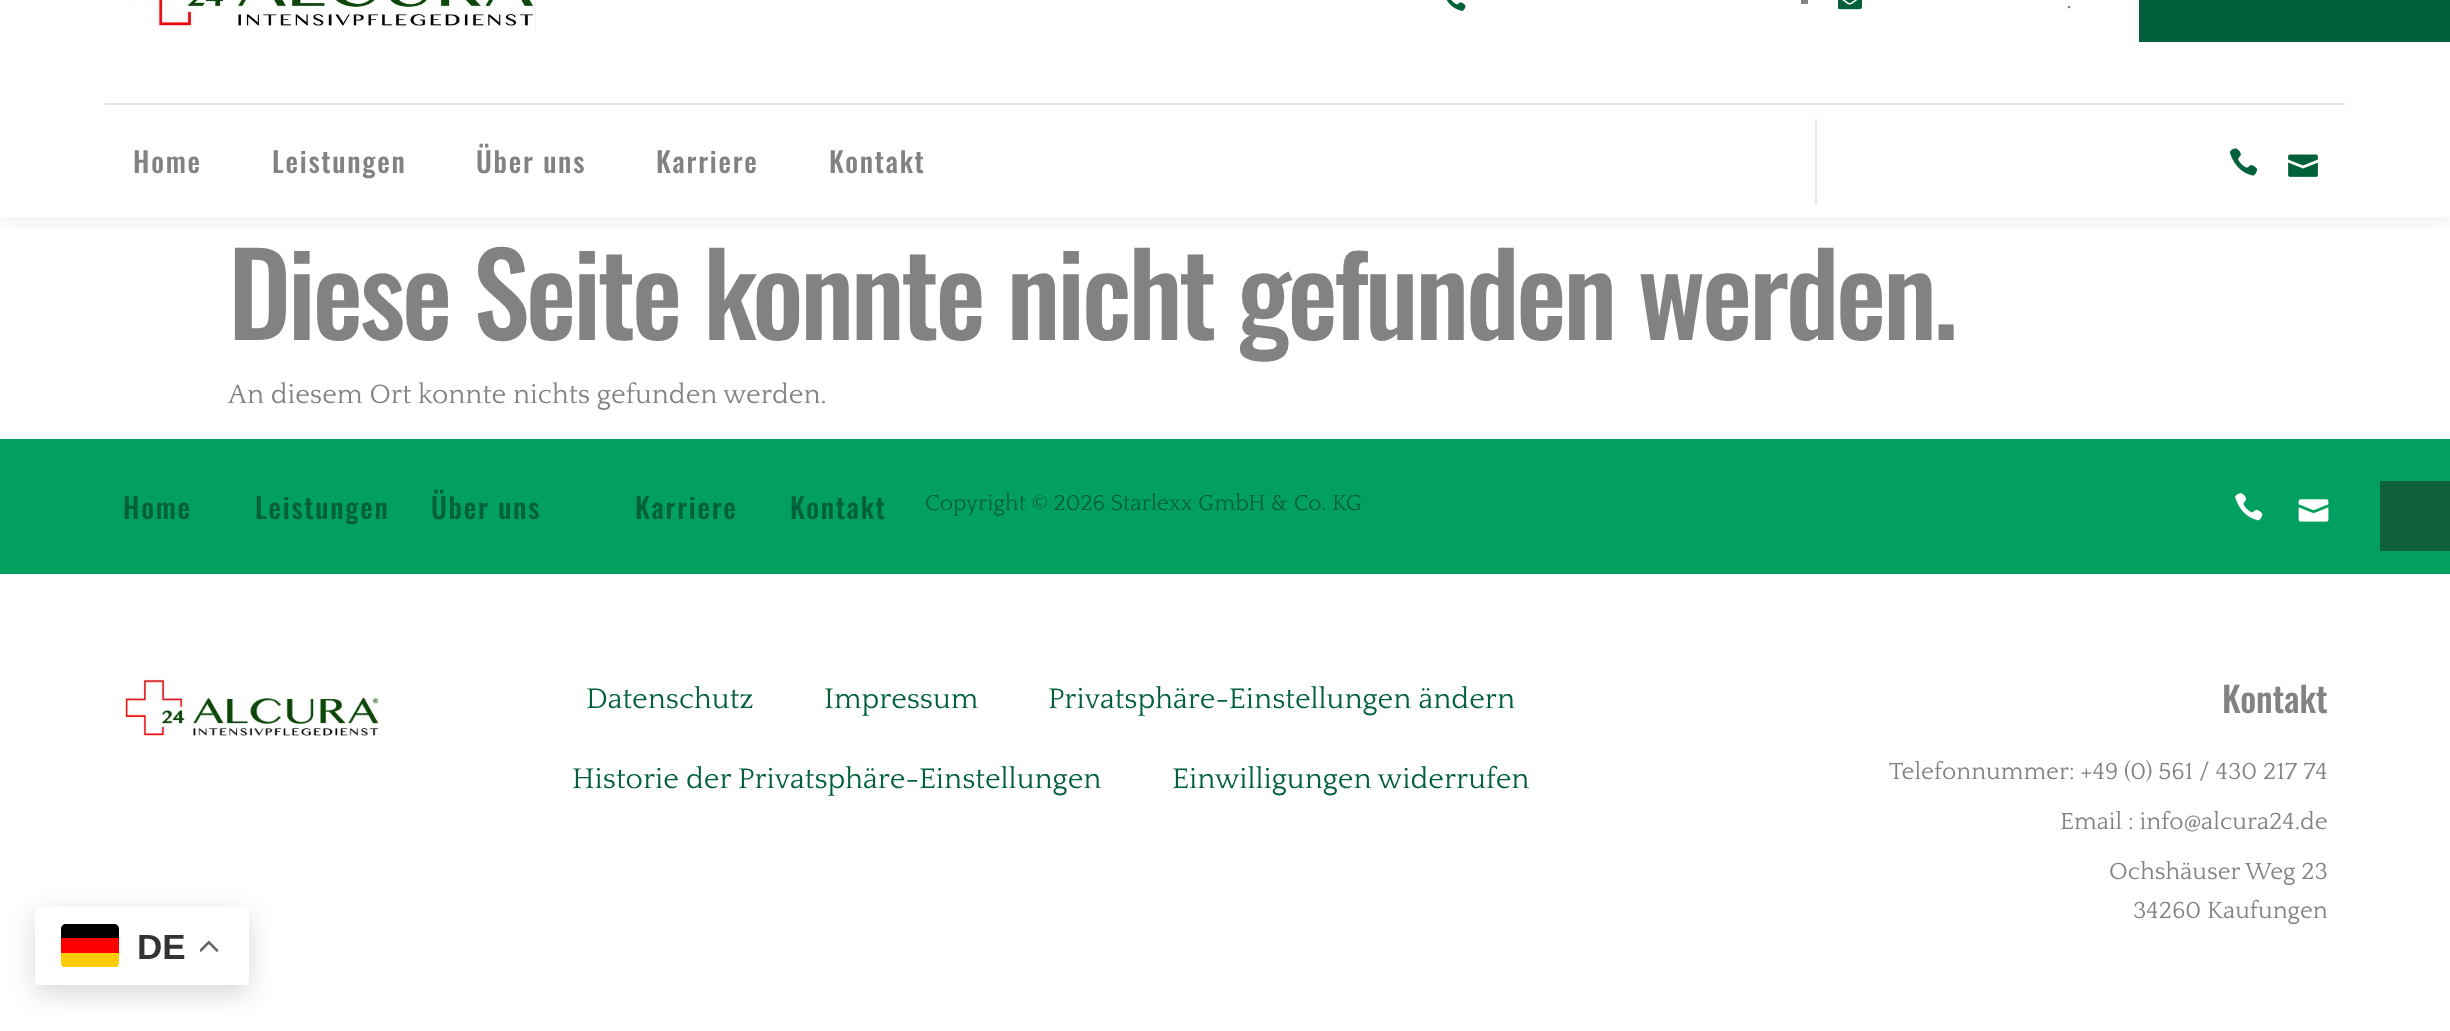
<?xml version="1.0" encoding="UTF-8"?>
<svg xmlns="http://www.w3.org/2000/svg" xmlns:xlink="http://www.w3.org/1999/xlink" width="2450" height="1031">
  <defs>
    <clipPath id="clip1"><rect x="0" y="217" width="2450" height="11" /></clipPath>
    <clipPath id="clip2"><rect x="61" y="924" width="58" height="44" rx="5" /></clipPath>
  </defs>
  <rect width="100%" height="100%" fill="#ffffff" />
  <g clip-path="url(#clip1)">
    <rect y="-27" width="2450" height="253" fill="#000000" fill-opacity="0.05" filter="blur(9px)" />
  </g>
  <rect x="105" y="103" width="2240" height="2" fill="#e2e6f2" />
  <rect x="535" width="1" height="33" fill="#e1e4de" />
  <image x="128" y="0" width="408" height="33" xlink:href="image1.png" />
  <image x="1446" y="0" width="20" height="11" xlink:href="image2.png" />
  <rect x="1801" width="7" height="4" fill="#828282" />
  <image x="1838" y="0" width="24" height="10" xlink:href="image3.png" />
  <rect x="2139" width="311" height="42" fill="#006039" />
  <rect x="1815" y="119" width="2" height="86" fill="#e2e6f2" />
  <image x="2229" y="148" width="29" height="28" xlink:href="image4.png" />
  <image x="2288" y="154" width="30" height="23" xlink:href="image5.png" />
  <rect y="439" width="2450" height="135" fill="#02a060" />
  <image x="2235" y="493" width="28" height="28" xlink:href="image6.png" />
  <image x="2298" y="499" width="31" height="23" xlink:href="image7.png" />
  <image x="124" y="676" width="256" height="64" xlink:href="image8.png" />
  <rect x="2380" y="481" width="70" height="70" fill="#10603e" />
  <rect x="35" y="915" width="214" height="79" rx="4" fill="#000000" fill-opacity="0.15" filter="blur(13px)" />
  <rect x="35" y="907" width="214" height="78" rx="4" fill="#ffffff" />
  <g clip-path="url(#clip2)">
    <rect x="61" y="953" width="58" height="14" fill="#ffcc00" />
  </g>
  <path d="M 66 924 h 48 c 3 0 5 2 5 5 v 9 h -58 v -9 c 0 -3 2 -5 5 -5 z" fill="#000000" />
  <rect x="61" y="938" width="58" height="15" fill="#ff0000" />
  <image x="200" y="940" width="19" height="12" xlink:href="image9.png" />
  <text x="2066" y="8" style="font-family: Quattrocento; font-size: 28px; fill: #828282">.</text>
  <text x="133" y="173" style="font-family: Oswald; font-size: 28px; font-weight: 500; letter-spacing: 1.75px; fill: #828282">Home</text>
  <text x="272" y="173" style="font-family: Oswald; font-size: 28px; font-weight: 500; letter-spacing: 1.75px; fill: #828282">Leistungen</text>
  <text x="476" y="173" style="font-family: Oswald; font-size: 28px; font-weight: 500; letter-spacing: 1.75px; fill: #828282">Über uns</text>
  <text x="656" y="173" style="font-family: Oswald; font-size: 28px; font-weight: 500; letter-spacing: 1.75px; fill: #828282">Karriere</text>
  <text x="829" y="173" style="font-family: Oswald; font-size: 28px; font-weight: 500; letter-spacing: 1.75px; fill: #828282">Kontakt</text>
  <text x="228" y="340" style="font-family: Oswald; font-size: 113.75px; font-weight: 500; letter-spacing: -3.5px; fill: #828282">Diese Seite konnte nicht gefunden werden.</text>
  <text x="228" y="403" style="font-family: Quattrocento; font-size: 28px; fill: #828282">An diesem Ort konnte nichts gefunden werden.</text>
  <text x="123" y="519" style="font-family: Oswald; font-size: 28px; font-weight: 500; letter-spacing: 1.75px; fill: #006039">Home</text>
  <text x="255" y="519" style="font-family: Oswald; font-size: 28px; font-weight: 500; letter-spacing: 1.75px; fill: #006039">Leistungen</text>
  <text x="431" y="519" style="font-family: Oswald; font-size: 28px; font-weight: 500; letter-spacing: 1.75px; fill: #006039">Über uns</text>
  <text x="635" y="519" style="font-family: Oswald; font-size: 28px; font-weight: 500; letter-spacing: 1.75px; fill: #006039">Karriere</text>
  <text x="790" y="519" style="font-family: Oswald; font-size: 28px; font-weight: 500; letter-spacing: 1.75px; fill: #006039">Kontakt</text>
  <text x="925" y="510" style="font-family: Quattrocento; font-size: 22.75px; fill: #006039">Copyright © 2026 Starlexx GmbH &amp; Co. KG</text>
  <text x="586" y="708" style="font-family: Quattrocento; font-size: 29.75px; fill: #006039">Datenschutz</text>
  <text x="824" y="708" style="font-family: Quattrocento; font-size: 29.75px; fill: #006039">Impressum</text>
  <text x="1048" y="708" style="font-family: Quattrocento; font-size: 29.75px; fill: #006039">Privatsphäre-Einstellungen ändern</text>
  <text x="572" y="788" style="font-family: Quattrocento; font-size: 29.75px; fill: #006039">Historie der Privatsphäre-Einstellungen</text>
  <text x="1172" y="788" style="font-family: Quattrocento; font-size: 29.75px; fill: #006039">Einwilligungen widerrufen</text>
  <text x="2222" y="713" style="font-family: Oswald; font-size: 35px; font-weight: 500; fill: #828282">Kontakt</text>
  <text x="1889" y="779" style="font-family: Quattrocento; font-size: 24.5px; fill: #828282">Telefonnummer: +49 (0) 561 / 430 217 74</text>
  <text x="2060" y="829" style="font-family: Quattrocento; font-size: 24.5px; fill: #828282">Email : info@alcura24.de</text>
  <text x="2109" y="879" style="font-family: Quattrocento; font-size: 24.5px; fill: #828282">Ochshäuser Weg 23</text>
  <text x="2133" y="918" style="font-family: Quattrocento; font-size: 24.5px; fill: #828282">34260 Kaufungen</text>
  <text x="137" y="959" style="font-family: Liberation Sans; font-size: 35px; font-weight: bold; fill: #333333">DE</text>
</svg>
